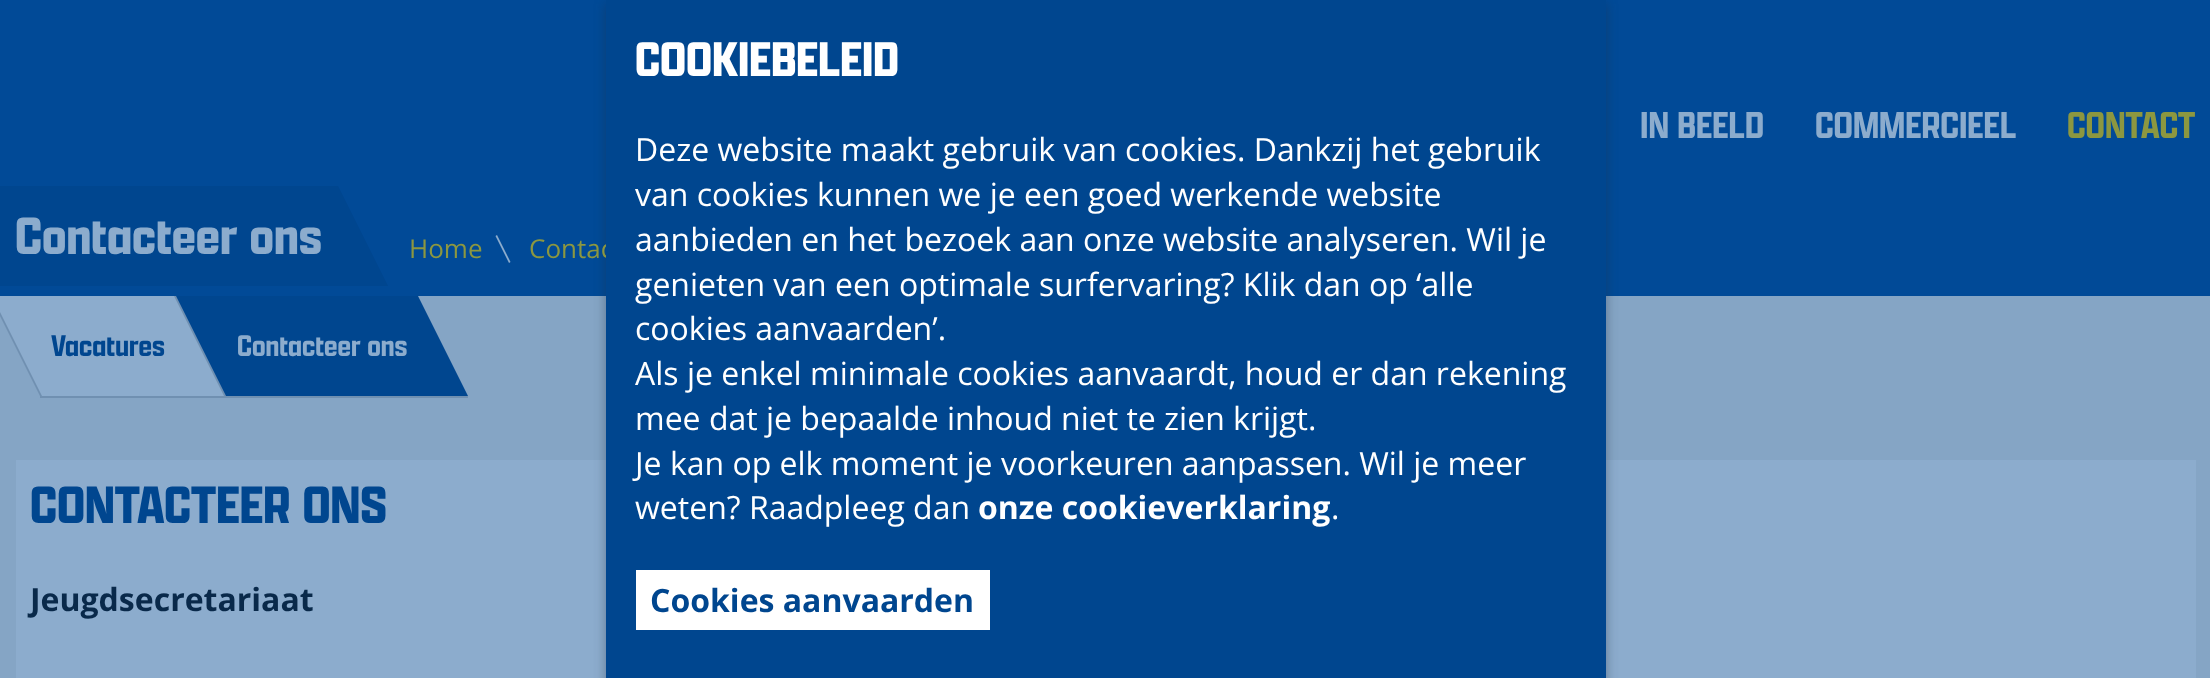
<?xml version="1.0" encoding="UTF-8"?>
<svg xmlns="http://www.w3.org/2000/svg" xmlns:xlink="http://www.w3.org/1999/xlink" width="2210" height="678">
  <rect width="100%" height="100%" fill="#85a5c5" />
  <rect width="2210" height="296" fill="#014a97" />
  <rect x="16" y="460" width="2180" height="218" fill="#8caccd" />
  <rect x="606" y="4" width="1000" height="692" fill="#1e2d3e" fill-opacity="0.4" filter="blur(6px)" />
  <rect y="186" width="338" height="100" fill="#00468f" />
  <path d="M 388 286 h -50 v -100 z" fill="#00468f" />
  <path d="M 495.5 236 l 1.5 -1 l 13.5 27 l -1.5 1 z" fill="#8caccd" />
  <path d="M -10 296 h 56 v 100 h -6 z" fill="#7090b1" />
  <path d="M 226 396 h -56 v -100 h 6 z" fill="#7090b1" />
  <rect x="42" y="296" width="132" height="100" fill="#8caccd" />
  <path d="M -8 296 h 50 v 100 z" fill="#8caccd" />
  <path d="M 224 396 h -50 v -100 z" fill="#8caccd" />
  <rect x="40" y="396" width="428" height="2" fill="#7090b1" />
  <rect x="226" y="296" width="192" height="100" fill="#00468f" />
  <path d="M 176 296 h 50 v 100 z" fill="#00468f" />
  <path d="M 468 396 h -50 v -100 z" fill="#00468f" />
  <text x="1640" y="138" style="font-family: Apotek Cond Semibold; font-size: 40px; font-weight: 600; fill: #8caccd">IN BEELD</text>
  <text x="1815" y="138" style="font-family: Apotek Cond Semibold; font-size: 40px; font-weight: 600; fill: #8caccd">COMMERCIEEL</text>
  <text x="2067" y="138" style="font-family: Apotek Cond Semibold; font-size: 40px; font-weight: 600; fill: #8c9740">CONTACT</text>
  <text x="15" y="254" style="font-family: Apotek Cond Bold; font-size: 56px; font-weight: bold; fill: #8caccd">Contacteer ons</text>
  <text x="409" y="258" style="font-family: Open Sans; font-size: 26px; fill: #8c9740">Home</text>
  <text x="529" y="258" style="font-family: Open Sans; font-size: 26px; fill: #8c9740">Contac</text>
  <rect x="606" width="1000" height="678" fill="#00468f" />
  <rect x="636" y="570" width="354" height="60" fill="#ffffff" />
  <text x="650" y="612" style="font-family: Open Sans; font-size: 32px; font-weight: bold; fill: #00468f">Cookies aanvaarden</text>
  <text x="1331" y="519" style="font-family: Open Sans; font-size: 32px; fill: #ffffff">.</text>
  <text x="978" y="519" style="font-family: Open Sans; font-size: 32px; font-weight: bold; fill: #ffffff">onze cookieverklaring</text>
  <text x="635" y="519" style="font-family: Open Sans; font-size: 32px; fill: #ffffff">weten? Raadpleeg dan</text>
  <text x="635" y="475" style="font-family: Open Sans; font-size: 32px; fill: #ffffff">Je kan op elk moment je voorkeuren aanpassen. Wil je meer</text>
  <text x="635" y="430" style="font-family: Open Sans; font-size: 32px; fill: #ffffff">mee dat je bepaalde inhoud niet te zien krijgt.</text>
  <text x="635" y="385" style="font-family: Open Sans; font-size: 32px; fill: #ffffff">Als je enkel minimale cookies aanvaardt, houd er dan rekening</text>
  <text x="635" y="340" style="font-family: Open Sans; font-size: 32px; fill: #ffffff">cookies aanvaarden’.</text>
  <text x="635" y="296" style="font-family: Open Sans; font-size: 32px; fill: #ffffff">genieten van een optimale surfervaring? Klik dan op ‘alle</text>
  <text x="635" y="251" style="font-family: Open Sans; font-size: 32px; fill: #ffffff">aanbieden en het bezoek aan onze website analyseren. Wil je</text>
  <text x="635" y="206" style="font-family: Open Sans; font-size: 32px; fill: #ffffff">van cookies kunnen we je een goed werkende website</text>
  <text x="635" y="161" style="font-family: Open Sans; font-size: 32px; fill: #ffffff">Deze website maakt gebruik van cookies. Dankzij het gebruik</text>
  <text x="635" y="76" style="font-family: Apotek Cond Bold; font-size: 52px; font-weight: bold; fill: #ffffff">COOKIEBELEID</text>
  <text x="51" y="356" style="font-family: Apotek Cond Semibold; font-size: 32px; font-weight: 600; fill: #00468f">Vacatures</text>
  <text x="237" y="356" style="font-family: Apotek Cond Semibold; font-size: 32px; font-weight: 600; fill: #8caccd">Contacteer ons</text>
  <text x="30" y="523" style="font-family: Apotek Cond Bold; font-size: 56px; font-weight: bold; fill: #00468f">CONTACTEER ONS</text>
  <text x="30" y="611" style="font-family: Open Sans; font-size: 32px; font-weight: bold; fill: #09294a">Jeugdsecretariaat</text>
</svg>
